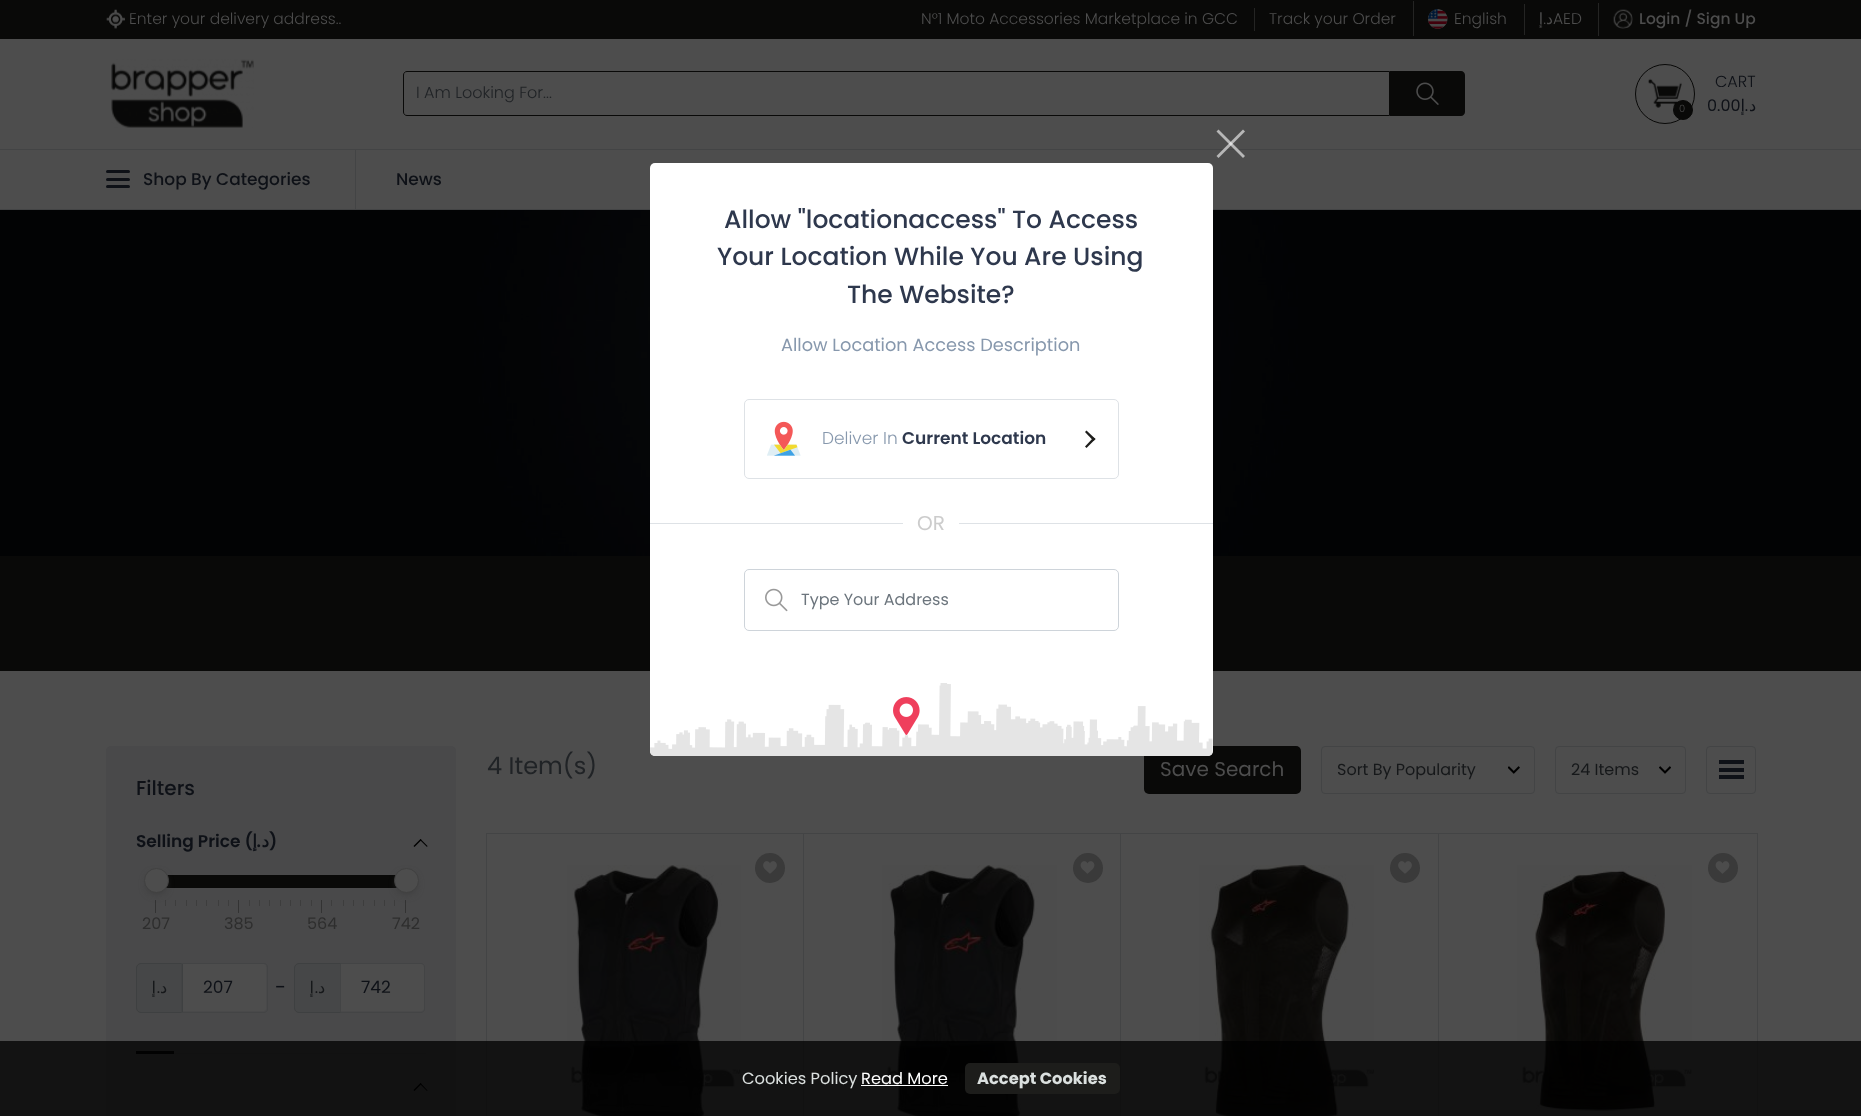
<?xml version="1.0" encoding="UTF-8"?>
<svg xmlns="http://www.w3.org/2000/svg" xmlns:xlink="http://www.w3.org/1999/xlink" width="1861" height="1116">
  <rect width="100%" height="100%" fill="#4d4d4d" />
  <rect y="209" width="1861" height="1" fill="#434445" />
  <rect width="1861" height="39" fill="#090908" />
  <image x="106" y="9" width="19" height="20" xlink:href="image1.png" />
  <rect x="1254" y="8" width="1" height="23" fill="#242423" />
  <rect x="1413" y="1" width="1" height="35" fill="#242423" />
  <image x="1428" y="9" width="20" height="20" xlink:href="image2.png" />
  <rect x="1524" y="4" width="1" height="31" fill="#242423" />
  <rect x="1598" y="3" width="1" height="33" fill="#242423" />
  <image x="1613" y="9" width="20" height="20" xlink:href="image3.png" />
  <image x="111" y="59" width="143" height="69" xlink:href="image4.png" />
  <path d="M 407 71.5 h 982.5 v 44 h -982.5 c -2 0 -3.5 -1.5 -3.5 -3.5 v -37 c 0 -2 1.5 -3.5 3.5 -3.5 z" fill="none" stroke="#090908" />
  <path d="M 1390 71 h 71 c 2 0 4 2 4 4 v 37 c 0 2 -2 4 -4 4 h -71 z" fill="#090908" />
  <image x="1416" y="82" width="23" height="23" xlink:href="image5.png" />
  <circle cx="1665" cy="94" r="29.5" fill="none" stroke="#090908" />
  <image x="1648" y="78" width="34" height="30" xlink:href="image6.png" />
  <circle cx="1683" cy="110" r="9.5" fill="#090908" stroke="#090908" />
  <rect y="149" width="1861" height="1" fill="#434445" />
  <rect x="355" y="150" width="1" height="59" fill="#434445" />
  <rect x="106" y="170" width="24" height="3" rx="1.5" fill="#0e1117" />
  <rect x="106" y="178" width="24" height="3" rx="1.5" fill="#0e1117" />
  <rect x="106" y="185" width="24" height="3" rx="1.5" fill="#0e1117" />
  <image x="0" y="210" width="1861" height="346" xlink:href="image7.png" />
  <rect y="556" width="1861" height="115" fill="#090908" />
  <rect x="1144" y="746" width="157" height="48" rx="5" fill="#090908" />
  <image x="1508" y="766" width="12" height="8" xlink:href="image8.png" />
  <rect x="1321.5" y="746.5" width="213" height="47" rx="3.5" fill="none" stroke="#434445" />
  <image x="1659" y="766" width="12" height="8" xlink:href="image9.png" />
  <rect x="1555.5" y="746.5" width="130" height="47" rx="3.5" fill="none" stroke="#434445" />
  <rect x="1706.5" y="746.5" width="49" height="47" rx="3.5" fill="none" stroke="#434445" />
  <rect x="1719" y="760" width="25" height="4" fill="#0e1117" />
  <rect x="1719" y="768" width="25" height="4" fill="#0e1117" />
  <rect x="1719" y="775" width="25" height="4" fill="#0e1117" />
  <rect x="486.5" y="833.5" width="318" height="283" fill="none" stroke="#434445" />
  <image x="567" y="865" width="174" height="251" xlink:href="image10.png" />
  <circle cx="770" cy="868" r="15" fill="#3a3a3a" />
  <image x="763" y="861" width="14" height="13" xlink:href="image11.png" />
  <rect x="804" y="834" width="1" height="282" fill="#4d4d4d" />
  <rect x="803.5" y="833.5" width="319" height="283" fill="none" stroke="#434445" />
  <image x="882" y="865" width="175" height="251" xlink:href="image12.png" />
  <circle cx="1088" cy="868" r="15" fill="#3a3a3a" />
  <image x="1080" y="861" width="15" height="13" xlink:href="image13.png" />
  <rect x="1122" y="834" width="1" height="282" fill="#4d4d4d" />
  <rect x="1120.5" y="833.5" width="319" height="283" fill="none" stroke="#434445" />
  <image x="1199" y="865" width="175" height="251" xlink:href="image14.png" />
  <circle cx="1405" cy="868" r="15" fill="#3a3a3a" />
  <image x="1398" y="861" width="14" height="13" xlink:href="image11.png" />
  <rect x="1439" y="834" width="1" height="282" fill="#4d4d4d" />
  <rect x="1438.5" y="833.5" width="319" height="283" fill="none" stroke="#434445" />
  <image x="1517" y="865" width="175" height="248" xlink:href="image15.png" />
  <circle cx="1723" cy="868" r="15" fill="#3a3a3a" />
  <image x="1715" y="861" width="15" height="13" xlink:href="image13.png" />
  <rect x="106" y="746" width="350" height="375" rx="5" fill="#49494a" />
  <rect x="174" y="1053" width="252" height="1" fill="#434445" />
  <path d="M 414.5 847 l -1 -1 l 7 -7 l 1 1 z" fill="#000000" />
  <path d="M 427 847 l -7 -7 l 0.5 -1 l 7 7 z" fill="#000000" />
  <rect x="166" y="875" width="231" height="13" fill="#090908" />
  <rect x="155" y="900" width="1" height="13" fill="#333333" />
  <rect x="165" y="900" width="1" height="6" fill="#3d3d3d" />
  <rect x="175" y="900" width="1" height="6" fill="#3d3d3d" />
  <rect x="148" y="875" width="17" height="18" rx="8.5" fill="#383838" filter="blur(4px)" />
  <circle cx="156.5" cy="880.5" r="12" fill="#4d4d4d" stroke="#414141" />
  <rect x="394" y="900" width="1" height="6" fill="#3d3d3d" />
  <rect x="405" y="900" width="1" height="13" fill="#333333" />
  <rect x="398" y="875" width="17" height="18" rx="8.5" fill="#383838" filter="blur(4px)" />
  <circle cx="406.5" cy="880.5" r="12" fill="#4d4d4d" stroke="#414141" />
  <rect x="186" y="900" width="1" height="6" fill="#3d3d3d" />
  <rect x="196" y="900" width="1" height="6" fill="#3d3d3d" />
  <rect x="206" y="900" width="1" height="6" fill="#3d3d3d" />
  <rect x="218" y="900" width="1" height="6" fill="#3d3d3d" />
  <rect x="228" y="900" width="1" height="6" fill="#3d3d3d" />
  <rect x="238" y="900" width="1" height="13" fill="#333333" />
  <rect x="249" y="900" width="1" height="6" fill="#3d3d3d" />
  <rect x="259" y="900" width="1" height="6" fill="#3d3d3d" />
  <rect x="269" y="900" width="1" height="6" fill="#3d3d3d" />
  <rect x="280" y="900" width="1" height="6" fill="#3d3d3d" />
  <rect x="290" y="900" width="1" height="6" fill="#3d3d3d" />
  <rect x="300" y="900" width="1" height="6" fill="#3d3d3d" />
  <rect x="311" y="900" width="1" height="6" fill="#3d3d3d" />
  <rect x="321" y="900" width="1" height="13" fill="#333333" />
  <rect x="331" y="900" width="1" height="6" fill="#3d3d3d" />
  <rect x="343" y="900" width="1" height="6" fill="#3d3d3d" />
  <rect x="353" y="900" width="1" height="6" fill="#3d3d3d" />
  <rect x="363" y="900" width="1" height="6" fill="#3d3d3d" />
  <rect x="374" y="900" width="1" height="6" fill="#3d3d3d" />
  <rect x="384" y="900" width="1" height="6" fill="#3d3d3d" />
  <path d="M 141 963.5 h 41.5 v 49 h -41.5 c -2.5 0 -4.5 -2 -4.5 -4.5 v -40 c 0 -2.5 2 -4.5 4.5 -4.5 z" fill="#464748" stroke="#3e4041" />
  <path d="M 183 964 h 80.5 c 1.5 0 2.5 1 2.5 2.5 v 42 c 0 1.5 -1 2.5 -2.5 2.5 h -80.5 z" fill="#4d4d4d" />
  <path d="M 181.5 963.5 h 82.5 c 2 0 3.5 1.5 3.5 3.5 v 42 c 0 2 -1.5 3.5 -3.5 3.5 h -82.5 z" fill="none" stroke="#434445" />
  <path d="M 299 963.5 h 41.5 v 49 h -41.5 c -2.5 0 -4.5 -2 -4.5 -4.5 v -40 c 0 -2.5 2 -4.5 4.5 -4.5 z" fill="#464748" stroke="#3e4041" />
  <path d="M 341 964 h 80.5 c 1.5 0 2.5 1 2.5 2.5 v 42 c 0 1.5 -1 2.5 -2.5 2.5 h -80.5 z" fill="#4d4d4d" />
  <path d="M 340.5 963.5 h 80.5 c 2 0 3.5 1.5 3.5 3.5 v 42 c 0 2 -1.5 3.5 -3.5 3.5 h -80.5 z" fill="none" stroke="#434445" />
  <rect x="136" y="1051" width="38" height="3" fill="#090908" />
  <path d="M 414.5 1091 l -1 -1 l 7 -7 l 1 1 z" fill="#000000" />
  <path d="M 427 1091 l -7 -7 l 0.5 -1 l 7 7.5 z" fill="#000000" />
  <rect y="1041" width="1861" height="75" fill="#000000" fill-opacity="0.75" />
  <rect x="861" y="1085" width="87" height="1" fill="#ffffff" />
  <rect x="965" y="1063" width="155" height="31" rx="5" fill="#1d1d1b" />
  <path d="M 1243 129.5 l 2 2 l -26.5 26.5 l -2 -2 z" fill="#ffffff" fill-opacity="0.6" />
  <path d="M 1218.5 129.5 l 26.5 26.5 l -2 2 l -26.5 -26.5 z" fill="#ffffff" fill-opacity="0.6" />
  <rect x="650" y="163" width="563" height="593" rx="5" fill="#ffffff" />
  <image x="650" y="683" width="563" height="73" xlink:href="image16.png" />
  <rect x="744.5" y="399.5" width="374" height="79" rx="4.5" fill="none" stroke="#dee2e6" />
  <image x="767" y="421" width="34" height="35" xlink:href="image17.png" />
  <path d="M 1086.5 430.5 l 9 8.5 l -2 2 l -8.5 -9 z" fill="#1d1d1b" />
  <path d="M 1093.5 437.5 l 2 1.5 l -9 9 l -1.5 -1.5 z" fill="#1d1d1b" />
  <rect x="650" y="523" width="253" height="1" fill="#dee2e6" />
  <rect x="959" y="523" width="254" height="1" fill="#dee2e6" />
  <image x="765" y="588" width="23" height="24" xlink:href="image18.png" />
  <rect x="744.5" y="569.5" width="374" height="61" rx="4.5" fill="none" stroke="#ced4da" />
  <text x="129" y="24" style="font-family: Poppins; font-size: 15.5px; font-weight: 300; fill: #4d4d4d">Enter your delivery address..</text>
  <text x="921" y="24" style="font-family: Poppins; font-size: 15.5px; font-weight: 300; fill: #4d4d4d">N°1 Moto Accessories Marketplace in GCC</text>
  <text x="1269" y="24" style="font-family: Poppins; font-size: 15.5px; font-weight: 300; fill: #4d4d4d">Track your Order</text>
  <text x="1454" y="24" style="font-family: Poppins; font-size: 15.5px; font-weight: 300; fill: #4d4d4d">English</text>
  <text x="1543" y="24" style="font-family: DejaVu Sans; font-size: 15.5px; direction: rtl; fill: #4d4d4d">إ</text>
  <text x="1546" y="24" style="font-family: Poppins; font-size: 15.5px; font-weight: 300; direction: rtl; fill: #4d4d4d">.</text>
  <text x="1553" y="24" style="font-family: DejaVu Sans; font-size: 15.5px; direction: rtl; fill: #4d4d4d">د</text>
  <text x="1553" y="24" style="font-family: Poppins; font-size: 15.5px; font-weight: 300; fill: #4d4d4d">AED</text>
  <text x="1639" y="24" style="font-family: Poppins; font-size: 15.5px; font-weight: 500; fill: #4d4d4d">Login / Sign Up</text>
  <text x="416" y="98" style="font-family: Poppins; font-size: 16px; font-weight: 300; fill: #202326">I Am Looking For...</text>
  <text x="1715" y="87" style="font-family: Poppins; font-size: 16px; font-weight: 300; fill: #0e1117">CART</text>
  <text x="1707" y="111" style="font-family: Poppins; font-size: 16px; fill: #0e1117">0.00</text>
  <text x="1745" y="111" style="font-family: DejaVu Sans; font-size: 16px; direction: rtl; fill: #0e1117">إ</text>
  <text x="1748" y="111" style="font-family: Poppins; font-size: 16px; direction: rtl; fill: #0e1117">.</text>
  <text x="1756" y="111" style="font-family: DejaVu Sans; font-size: 16px; direction: rtl; fill: #0e1117">د</text>
  <text x="1679" y="112" style="font-family: Poppins; font-size: 10px; font-weight: 300; fill: #4d4d4d">0</text>
  <text x="143" y="185" style="font-family: Poppins; font-size: 17px; font-weight: 500; fill: #0e1117">Shop By Categories</text>
  <text x="396" y="185" style="font-family: Poppins; font-size: 17px; font-weight: 500; fill: #0e1117">News</text>
  <text x="487" y="774" style="font-family: Poppins; font-size: 24px; fill: #202326">4 Item(s)</text>
  <text x="1160" y="776" style="font-family: Poppins; font-size: 20px; fill: #4d4d4d">Save Search</text>
  <text x="1337" y="775" style="font-family: Poppins; font-size: 16px; fill: #16181a">Sort By Popularity</text>
  <text x="1571" y="775" style="font-family: Poppins; font-size: 16px; fill: #16181a">24 Items</text>
  <text x="136" y="795" style="font-family: Poppins; font-size: 20px; font-weight: 500; fill: #0e1117">Filters</text>
  <text x="136" y="847" style="font-family: Poppins; font-size: 17px; font-weight: 600; fill: #0e1117">Selling Price (</text>
  <text x="257" y="847" style="font-family: DejaVu Sans; font-size: 17px; font-weight: bold; direction: rtl; fill: #0e1117">إ</text>
  <text x="261" y="847" style="font-family: Poppins; font-size: 17px; font-weight: 600; direction: rtl; fill: #0e1117">.</text>
  <text x="269" y="847" style="font-family: DejaVu Sans; font-size: 17px; font-weight: bold; direction: rtl; fill: #0e1117">د</text>
  <text x="269" y="847" style="font-family: Poppins; font-size: 17px; font-weight: 600; fill: #0e1117">)</text>
  <text x="142" y="929" style="font-family: Poppins; font-size: 16px; fill: #2e2e2e">207</text>
  <text x="224" y="929" style="font-family: Poppins; font-size: 16px; fill: #2e2e2e">385</text>
  <text x="307" y="929" style="font-family: Poppins; font-size: 16px; fill: #2e2e2e">564</text>
  <text x="392" y="929" style="font-family: Poppins; font-size: 16px; fill: #2e2e2e">742</text>
  <text x="156" y="993" style="font-family: DejaVu Sans; font-size: 16px; direction: rtl; fill: #16181a">إ</text>
  <text x="160" y="993" style="font-family: Poppins; font-size: 16px; direction: rtl; fill: #16181a">.</text>
  <text x="167" y="993" style="font-family: DejaVu Sans; font-size: 16px; direction: rtl; fill: #16181a">د</text>
  <text x="203" y="993" style="font-family: Poppins; font-size: 17px; fill: #0e1117">207</text>
  <text x="275" y="994" style="font-family: Poppins; font-size: 20px; fill: #0e1117">-</text>
  <text x="314" y="993" style="font-family: DejaVu Sans; font-size: 16px; direction: rtl; fill: #16181a">إ</text>
  <text x="318" y="993" style="font-family: Poppins; font-size: 16px; direction: rtl; fill: #16181a">.</text>
  <text x="325" y="993" style="font-family: DejaVu Sans; font-size: 16px; direction: rtl; fill: #16181a">د</text>
  <text x="361" y="993" style="font-family: Poppins; font-size: 17px; fill: #0e1117">742</text>
  <text x="742" y="1084" style="font-family: Poppins; font-size: 16.25px; fill: #dbe0df">Cookies Policy</text>
  <text x="861" y="1084" style="font-family: Poppins; font-size: 16.25px; fill: #ffffff">Read More</text>
  <text x="977" y="1084" style="font-family: Poppins; font-size: 16.25px; font-weight: bold; fill: #dbe0df">Accept Cookies</text>
  <text x="724" y="228" style="font-family: Poppins; font-size: 25px; font-weight: 500; fill: #2e384d">Allow "locationaccess" To Access</text>
  <text x="717" y="265" style="font-family: Poppins; font-size: 25px; font-weight: 500; fill: #2e384d">Your Location While You Are Using</text>
  <text x="847" y="303" style="font-family: Poppins; font-size: 25px; font-weight: 500; fill: #2e384d">The Website?</text>
  <text x="781" y="351" style="font-family: Poppins; font-size: 17.75px; fill: #8798ad">Allow Location Access Description</text>
  <text x="822" y="444" style="font-family: Poppins; font-size: 17px; font-weight: 300; fill: #8798ad">Deliver In</text>
  <text x="902" y="444" style="font-family: Poppins; font-size: 17px; font-weight: 600; fill: #2e384d">Current Location</text>
  <text x="917" y="530" style="font-family: Poppins; font-size: 20px; fill: #cccccc">OR</text>
  <text x="801" y="605" style="font-family: Poppins; font-size: 16px; fill: #6c757d">Type Your Address</text>
</svg>
